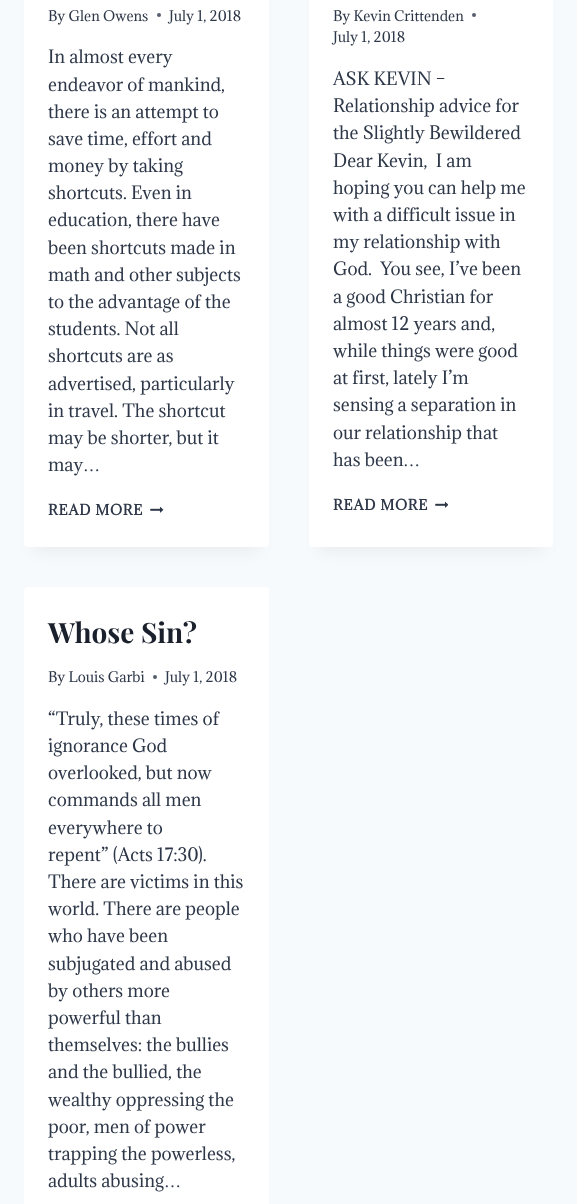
<?xml version="1.0" encoding="UTF-8"?>
<svg xmlns="http://www.w3.org/2000/svg" xmlns:xlink="http://www.w3.org/1999/xlink" width="577" height="1204">
  <rect width="100%" height="100%" fill="#f7fafc" />
  <rect x="34" y="-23" width="225" height="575" fill="#000000" fill-opacity="0.05" filter="blur(7.5px)" />
  <rect x="24" y="-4" width="245" height="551" rx="4" fill="#ffffff" />
  <circle cx="159" cy="15" r="2" fill="#575f6d" />
  <image x="150" y="506" width="14" height="7" xlink:href="image1.png" />
  <rect x="319" y="-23" width="224" height="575" fill="#000000" fill-opacity="0.05" filter="blur(7.5px)" />
  <rect x="309" y="-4" width="244" height="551" rx="4" fill="#ffffff" />
  <circle cx="474" cy="15" r="2" fill="#575f6d" />
  <image x="435" y="501" width="13" height="7" xlink:href="image2.png" />
  <rect x="24" y="587" width="245" height="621" rx="4" fill="#ffffff" />
  <circle cx="155" cy="677" r="2" fill="#575f6d" />
  <text x="48" y="21" style="font-family: Adamina; font-size: 13.5px; fill: #2d3748">By Glen Owens</text>
  <text x="169" y="21" style="font-family: Adamina; font-size: 13.5px; fill: #2d3748">July 1, 2018</text>
  <text x="48" y="63" style="font-family: Adamina; font-size: 17px; fill: #2d3748">In almost every</text>
  <text x="48" y="91" style="font-family: Adamina; font-size: 17px; fill: #2d3748">endeavor of mankind,</text>
  <text x="48" y="118" style="font-family: Adamina; font-size: 17px; fill: #2d3748">there is an attempt to</text>
  <text x="48" y="145" style="font-family: Adamina; font-size: 17px; fill: #2d3748">save time, effort and</text>
  <text x="48" y="172" style="font-family: Adamina; font-size: 17px; fill: #2d3748">money by taking</text>
  <text x="48" y="199" style="font-family: Adamina; font-size: 17px; fill: #2d3748">shortcuts. Even in</text>
  <text x="48" y="226" style="font-family: Adamina; font-size: 17px; fill: #2d3748">education, there have</text>
  <text x="48" y="254" style="font-family: Adamina; font-size: 17px; fill: #2d3748">been shortcuts made in</text>
  <text x="48" y="281" style="font-family: Adamina; font-size: 17px; fill: #2d3748">math and other subjects</text>
  <text x="48" y="308" style="font-family: Adamina; font-size: 17px; fill: #2d3748">to the advantage of the</text>
  <text x="48" y="335" style="font-family: Adamina; font-size: 17px; fill: #2d3748">students. Not all</text>
  <text x="48" y="362" style="font-family: Adamina; font-size: 17px; fill: #2d3748">shortcuts are as</text>
  <text x="48" y="390" style="font-family: Adamina; font-size: 17px; fill: #2d3748">advertised, particularly</text>
  <text x="48" y="417" style="font-family: Adamina; font-size: 17px; fill: #2d3748">in travel. The shortcut</text>
  <text x="48" y="444" style="font-family: Adamina; font-size: 17px; fill: #2d3748">may be shorter, but it</text>
  <text x="48" y="471" style="font-family: Adamina; font-size: 17px; fill: #2d3748">may</text>
  <text x="83" y="471" style="font-family: Liberation Serif; font-size: 17px; fill: #2d3748">…</text>
  <text x="48" y="515" style="font-family: Adamina; font-size: 13.5px; font-weight: bold; letter-spacing: 0.75px; fill: #2d3748">READ MORE</text>
  <text x="333" y="21" style="font-family: Adamina; font-size: 13.5px; fill: #2d3748">By Kevin Crittenden</text>
  <text x="333" y="42" style="font-family: Adamina; font-size: 13.5px; fill: #2d3748">July 1, 2018</text>
  <text x="333" y="85" style="font-family: Adamina; font-size: 17px; fill: #2d3748">ASK KEVIN –</text>
  <text x="333" y="112" style="font-family: Adamina; font-size: 17px; fill: #2d3748">Relationship advice for</text>
  <text x="333" y="139" style="font-family: Adamina; font-size: 17px; fill: #2d3748">the Slightly Bewildered</text>
  <text x="333" y="167" style="font-family: Adamina; font-size: 17px; fill: #2d3748" xml:space="preserve">Dear Kevin,  I am</text>
  <text x="333" y="194" style="font-family: Adamina; font-size: 17px; fill: #2d3748">hoping you can help me</text>
  <text x="333" y="221" style="font-family: Adamina; font-size: 17px; fill: #2d3748">with a difficult issue in</text>
  <text x="333" y="248" style="font-family: Adamina; font-size: 17px; fill: #2d3748">my relationship with</text>
  <text x="333" y="275" style="font-family: Adamina; font-size: 17px; fill: #2d3748" xml:space="preserve">God.  You see, I’ve been</text>
  <text x="333" y="303" style="font-family: Adamina; font-size: 17px; fill: #2d3748">a good Christian for</text>
  <text x="333" y="330" style="font-family: Adamina; font-size: 17px; fill: #2d3748">almost 12 years and,</text>
  <text x="333" y="357" style="font-family: Adamina; font-size: 17px; fill: #2d3748">while things were good</text>
  <text x="333" y="384" style="font-family: Adamina; font-size: 17px; fill: #2d3748">at first, lately I’m</text>
  <text x="333" y="411" style="font-family: Adamina; font-size: 17px; fill: #2d3748">sensing a separation in</text>
  <text x="333" y="439" style="font-family: Adamina; font-size: 17px; fill: #2d3748">our relationship that</text>
  <text x="333" y="466" style="font-family: Adamina; font-size: 17px; fill: #2d3748">has been</text>
  <text x="403" y="466" style="font-family: Liberation Serif; font-size: 17px; fill: #2d3748">…</text>
  <text x="333" y="510" style="font-family: Adamina; font-size: 13.5px; font-weight: bold; letter-spacing: 0.75px; fill: #2d3748">READ MORE</text>
  <text x="48" y="643" style="font-family: Playfair Display; font-size: 28px; font-weight: bold; fill: #1a202c">Whose Sin?</text>
  <text x="48" y="682" style="font-family: Adamina; font-size: 13.5px; fill: #2d3748">By Louis Garbi</text>
  <text x="165" y="682" style="font-family: Adamina; font-size: 13.5px; fill: #2d3748">July 1, 2018</text>
  <text x="48" y="725" style="font-family: Adamina; font-size: 17px; fill: #2d3748">“Truly, these times of</text>
  <text x="48" y="752" style="font-family: Adamina; font-size: 17px; fill: #2d3748">ignorance God</text>
  <text x="48" y="779" style="font-family: Adamina; font-size: 17px; fill: #2d3748">overlooked, but now</text>
  <text x="48" y="806" style="font-family: Adamina; font-size: 17px; fill: #2d3748">commands all men</text>
  <text x="48" y="834" style="font-family: Adamina; font-size: 17px; fill: #2d3748">everywhere to</text>
  <text x="48" y="861" style="font-family: Adamina; font-size: 17px; fill: #2d3748">repent” (Acts 17:30).</text>
  <text x="48" y="888" style="font-family: Adamina; font-size: 17px; fill: #2d3748">There are victims in this</text>
  <text x="48" y="915" style="font-family: Adamina; font-size: 17px; fill: #2d3748">world. There are people</text>
  <text x="48" y="942" style="font-family: Adamina; font-size: 17px; fill: #2d3748">who have been</text>
  <text x="48" y="970" style="font-family: Adamina; font-size: 17px; fill: #2d3748">subjugated and abused</text>
  <text x="48" y="997" style="font-family: Adamina; font-size: 17px; fill: #2d3748">by others more</text>
  <text x="48" y="1024" style="font-family: Adamina; font-size: 17px; fill: #2d3748">powerful than</text>
  <text x="48" y="1051" style="font-family: Adamina; font-size: 17px; fill: #2d3748">themselves: the bullies</text>
  <text x="48" y="1078" style="font-family: Adamina; font-size: 17px; fill: #2d3748">and the bullied, the</text>
  <text x="48" y="1106" style="font-family: Adamina; font-size: 17px; fill: #2d3748">wealthy oppressing the</text>
  <text x="48" y="1133" style="font-family: Adamina; font-size: 17px; fill: #2d3748">poor, men of power</text>
  <text x="48" y="1160" style="font-family: Adamina; font-size: 17px; fill: #2d3748">trapping the powerless,</text>
  <text x="48" y="1187" style="font-family: Adamina; font-size: 17px; fill: #2d3748">adults abusing</text>
  <text x="164" y="1187" style="font-family: Liberation Serif; font-size: 17px; fill: #2d3748">…</text>
</svg>
